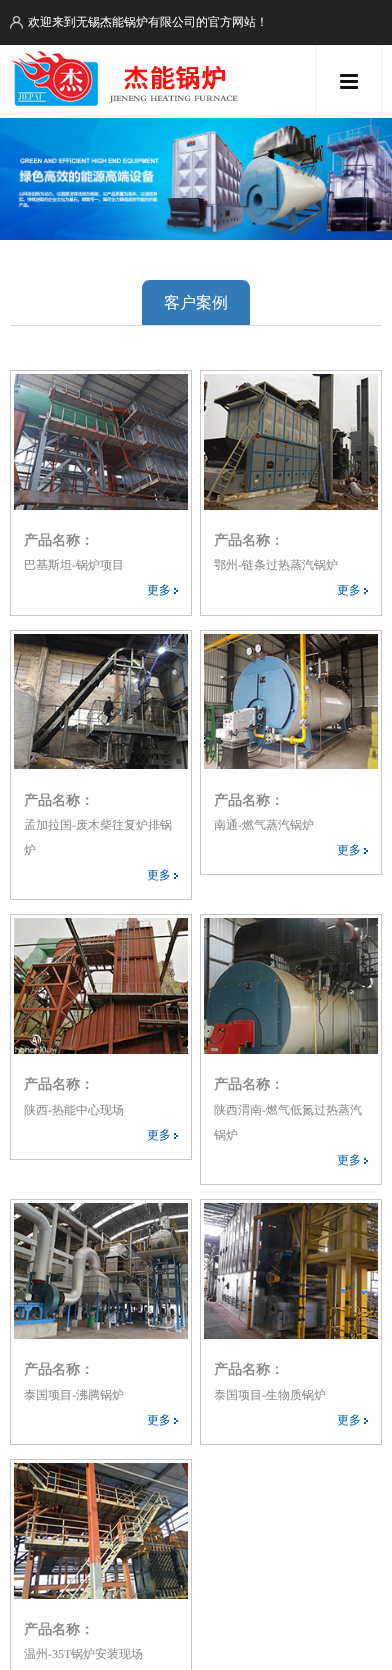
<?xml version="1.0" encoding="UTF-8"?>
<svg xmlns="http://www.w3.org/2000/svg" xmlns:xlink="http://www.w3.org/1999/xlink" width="392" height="1670">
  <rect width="100%" height="100%" fill="#ffffff" />
  <rect width="392" height="45" fill="#222222" />
  <image x="10" y="16" width="13" height="13" xlink:href="image1.png" />
  <image x="10" y="50" width="232" height="56" xlink:href="image2.png" />
  <image x="339" y="74" width="20" height="15" xlink:href="image3.png" />
  <rect x="381" y="45" width="1" height="73" fill="#f2f2f2" />
  <rect x="315" y="45" width="1" height="73" fill="#f2f2f2" />
  <image x="0" y="118" width="392" height="122" xlink:href="image4.png" />
  <rect x="10" y="325" width="372" height="1" fill="#dddddd" />
  <path d="M 150 280 h 92 c 4.5 0 8 3.5 8 8 v 37 h -108 v -37 c 0 -4.5 3.5 -8 8 -8 z" fill="#337ab7" />
  <rect x="10.5" y="370.5" width="181" height="245" fill="none" stroke="#c8c8c8" />
  <image x="14" y="374" width="174" height="136" xlink:href="image5.png" />
  <image x="174" y="588" width="4" height="6" xlink:href="image6.png" />
  <rect x="200.5" y="370.5" width="181" height="245" fill="none" stroke="#c8c8c8" />
  <image x="204" y="374" width="174" height="136" xlink:href="image7.png" />
  <image x="364" y="588" width="4" height="6" xlink:href="image6.png" />
  <rect x="10.5" y="630.5" width="181" height="269" fill="none" stroke="#c8c8c8" />
  <image x="14" y="634" width="174" height="135" xlink:href="image8.png" />
  <image x="174" y="873" width="4" height="6" xlink:href="image6.png" />
  <rect x="200.5" y="630.5" width="181" height="244" fill="none" stroke="#c8c8c8" />
  <image x="204" y="634" width="174" height="135" xlink:href="image9.png" />
  <image x="364" y="848" width="4" height="6" xlink:href="image6.png" />
  <rect x="10.5" y="914.5" width="181" height="245" fill="none" stroke="#c8c8c8" />
  <image x="14" y="918" width="174" height="136" xlink:href="image10.png" />
  <image x="174" y="1133" width="4" height="6" xlink:href="image6.png" />
  <rect x="200.5" y="914.5" width="181" height="270" fill="none" stroke="#c8c8c8" />
  <image x="204" y="918" width="174" height="136" xlink:href="image11.png" />
  <image x="364" y="1158" width="4" height="6" xlink:href="image6.png" />
  <rect x="10.5" y="1199.5" width="181" height="245" fill="none" stroke="#c8c8c8" />
  <image x="14" y="1203" width="174" height="136" xlink:href="image12.png" />
  <image x="174" y="1418" width="4" height="6" xlink:href="image6.png" />
  <rect x="200.5" y="1199.5" width="181" height="245" fill="none" stroke="#c8c8c8" />
  <image x="204" y="1203" width="174" height="136" xlink:href="image13.png" />
  <image x="364" y="1418" width="4" height="6" xlink:href="image6.png" />
  <rect x="10.5" y="1459.5" width="181" height="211" fill="none" stroke="#c8c8c8" />
  <image x="14" y="1463" width="174" height="136" xlink:href="image14.png" />
  <text x="28" y="26" style="font-family: WenQuanYi Zen Hei; font-size: 12px; font-weight: 500; fill: #ffffff">欢迎来到无锡杰能锅炉有限公司的官方网站！</text>
  <text x="164" y="308" style="font-family: WenQuanYi Zen Hei; font-size: 16px; font-weight: 500; fill: #ffffff">客户案例</text>
  <text x="24" y="545" style="font-family: WenQuanYi Zen Hei; font-size: 14px; font-weight: bold; fill: #888888">产品名称：</text>
  <text x="24" y="569" style="font-family: WenQuanYi Zen Hei; font-size: 12px; font-weight: 500; fill: #888888">巴基斯坦</text>
  <text x="72" y="569" style="font-family: Liberation Serif; font-size: 12px; fill: #888888">-</text>
  <text x="76" y="569" style="font-family: WenQuanYi Zen Hei; font-size: 12px; font-weight: 500; fill: #888888">锅炉项目</text>
  <text x="147" y="594" style="font-family: WenQuanYi Zen Hei; font-size: 12px; font-weight: 500; fill: #005ca3">更多</text>
  <text x="214" y="545" style="font-family: WenQuanYi Zen Hei; font-size: 14px; font-weight: bold; fill: #888888">产品名称：</text>
  <text x="214" y="569" style="font-family: WenQuanYi Zen Hei; font-size: 12px; font-weight: 500; fill: #888888">鄂州</text>
  <text x="238" y="569" style="font-family: Liberation Serif; font-size: 12px; fill: #888888">-</text>
  <text x="242" y="569" style="font-family: WenQuanYi Zen Hei; font-size: 12px; font-weight: 500; fill: #888888">链条过热蒸汽锅炉</text>
  <text x="337" y="594" style="font-family: WenQuanYi Zen Hei; font-size: 12px; font-weight: 500; fill: #005ca3">更多</text>
  <text x="24" y="805" style="font-family: WenQuanYi Zen Hei; font-size: 14px; font-weight: bold; fill: #888888">产品名称：</text>
  <text x="24" y="829" style="font-family: WenQuanYi Zen Hei; font-size: 12px; font-weight: 500; fill: #888888">孟加拉国</text>
  <text x="72" y="829" style="font-family: Liberation Serif; font-size: 12px; fill: #888888">-</text>
  <text x="76" y="829" style="font-family: WenQuanYi Zen Hei; font-size: 12px; font-weight: 500; fill: #888888">废木柴往复炉排锅</text>
  <text x="24" y="854" style="font-family: WenQuanYi Zen Hei; font-size: 12px; font-weight: 500; fill: #888888">炉</text>
  <text x="147" y="879" style="font-family: WenQuanYi Zen Hei; font-size: 12px; font-weight: 500; fill: #005ca3">更多</text>
  <text x="214" y="805" style="font-family: WenQuanYi Zen Hei; font-size: 14px; font-weight: bold; fill: #888888">产品名称：</text>
  <text x="214" y="829" style="font-family: WenQuanYi Zen Hei; font-size: 12px; font-weight: 500; fill: #888888">南通</text>
  <text x="238" y="829" style="font-family: Liberation Serif; font-size: 12px; fill: #888888">-</text>
  <text x="242" y="829" style="font-family: WenQuanYi Zen Hei; font-size: 12px; font-weight: 500; fill: #888888">燃气蒸汽锅炉</text>
  <text x="337" y="854" style="font-family: WenQuanYi Zen Hei; font-size: 12px; font-weight: 500; fill: #005ca3">更多</text>
  <text x="24" y="1089" style="font-family: WenQuanYi Zen Hei; font-size: 14px; font-weight: bold; fill: #888888">产品名称：</text>
  <text x="24" y="1114" style="font-family: WenQuanYi Zen Hei; font-size: 12px; font-weight: 500; fill: #888888">陕西</text>
  <text x="48" y="1114" style="font-family: Liberation Serif; font-size: 12px; fill: #888888">-</text>
  <text x="52" y="1114" style="font-family: WenQuanYi Zen Hei; font-size: 12px; font-weight: 500; fill: #888888">热能中心现场</text>
  <text x="147" y="1139" style="font-family: WenQuanYi Zen Hei; font-size: 12px; font-weight: 500; fill: #005ca3">更多</text>
  <text x="214" y="1089" style="font-family: WenQuanYi Zen Hei; font-size: 14px; font-weight: bold; fill: #888888">产品名称：</text>
  <text x="214" y="1114" style="font-family: WenQuanYi Zen Hei; font-size: 12px; font-weight: 500; fill: #888888">陕西渭南</text>
  <text x="262" y="1114" style="font-family: Liberation Serif; font-size: 12px; fill: #888888">-</text>
  <text x="266" y="1114" style="font-family: WenQuanYi Zen Hei; font-size: 12px; font-weight: 500; fill: #888888">燃气低氮过热蒸汽</text>
  <text x="214" y="1139" style="font-family: WenQuanYi Zen Hei; font-size: 12px; font-weight: 500; fill: #888888">锅炉</text>
  <text x="337" y="1164" style="font-family: WenQuanYi Zen Hei; font-size: 12px; font-weight: 500; fill: #005ca3">更多</text>
  <text x="24" y="1374" style="font-family: WenQuanYi Zen Hei; font-size: 14px; font-weight: bold; fill: #888888">产品名称：</text>
  <text x="24" y="1399" style="font-family: WenQuanYi Zen Hei; font-size: 12px; font-weight: 500; fill: #888888">泰国项目</text>
  <text x="72" y="1399" style="font-family: Liberation Serif; font-size: 12px; fill: #888888">-</text>
  <text x="76" y="1399" style="font-family: WenQuanYi Zen Hei; font-size: 12px; font-weight: 500; fill: #888888">沸腾锅炉</text>
  <text x="147" y="1424" style="font-family: WenQuanYi Zen Hei; font-size: 12px; font-weight: 500; fill: #005ca3">更多</text>
  <text x="214" y="1374" style="font-family: WenQuanYi Zen Hei; font-size: 14px; font-weight: bold; fill: #888888">产品名称：</text>
  <text x="214" y="1399" style="font-family: WenQuanYi Zen Hei; font-size: 12px; font-weight: 500; fill: #888888">泰国项目</text>
  <text x="262" y="1399" style="font-family: Liberation Serif; font-size: 12px; fill: #888888">-</text>
  <text x="266" y="1399" style="font-family: WenQuanYi Zen Hei; font-size: 12px; font-weight: 500; fill: #888888">生物质锅炉</text>
  <text x="337" y="1424" style="font-family: WenQuanYi Zen Hei; font-size: 12px; font-weight: 500; fill: #005ca3">更多</text>
  <text x="24" y="1634" style="font-family: WenQuanYi Zen Hei; font-size: 14px; font-weight: bold; fill: #888888">产品名称：</text>
  <text x="24" y="1658" style="font-family: WenQuanYi Zen Hei; font-size: 12px; font-weight: 500; fill: #888888">温州</text>
  <text x="48" y="1658" style="font-family: Liberation Serif; font-size: 12px; fill: #888888">-35T</text>
  <text x="71" y="1658" style="font-family: WenQuanYi Zen Hei; font-size: 12px; font-weight: 500; fill: #888888">锅炉安装现场</text>
</svg>
